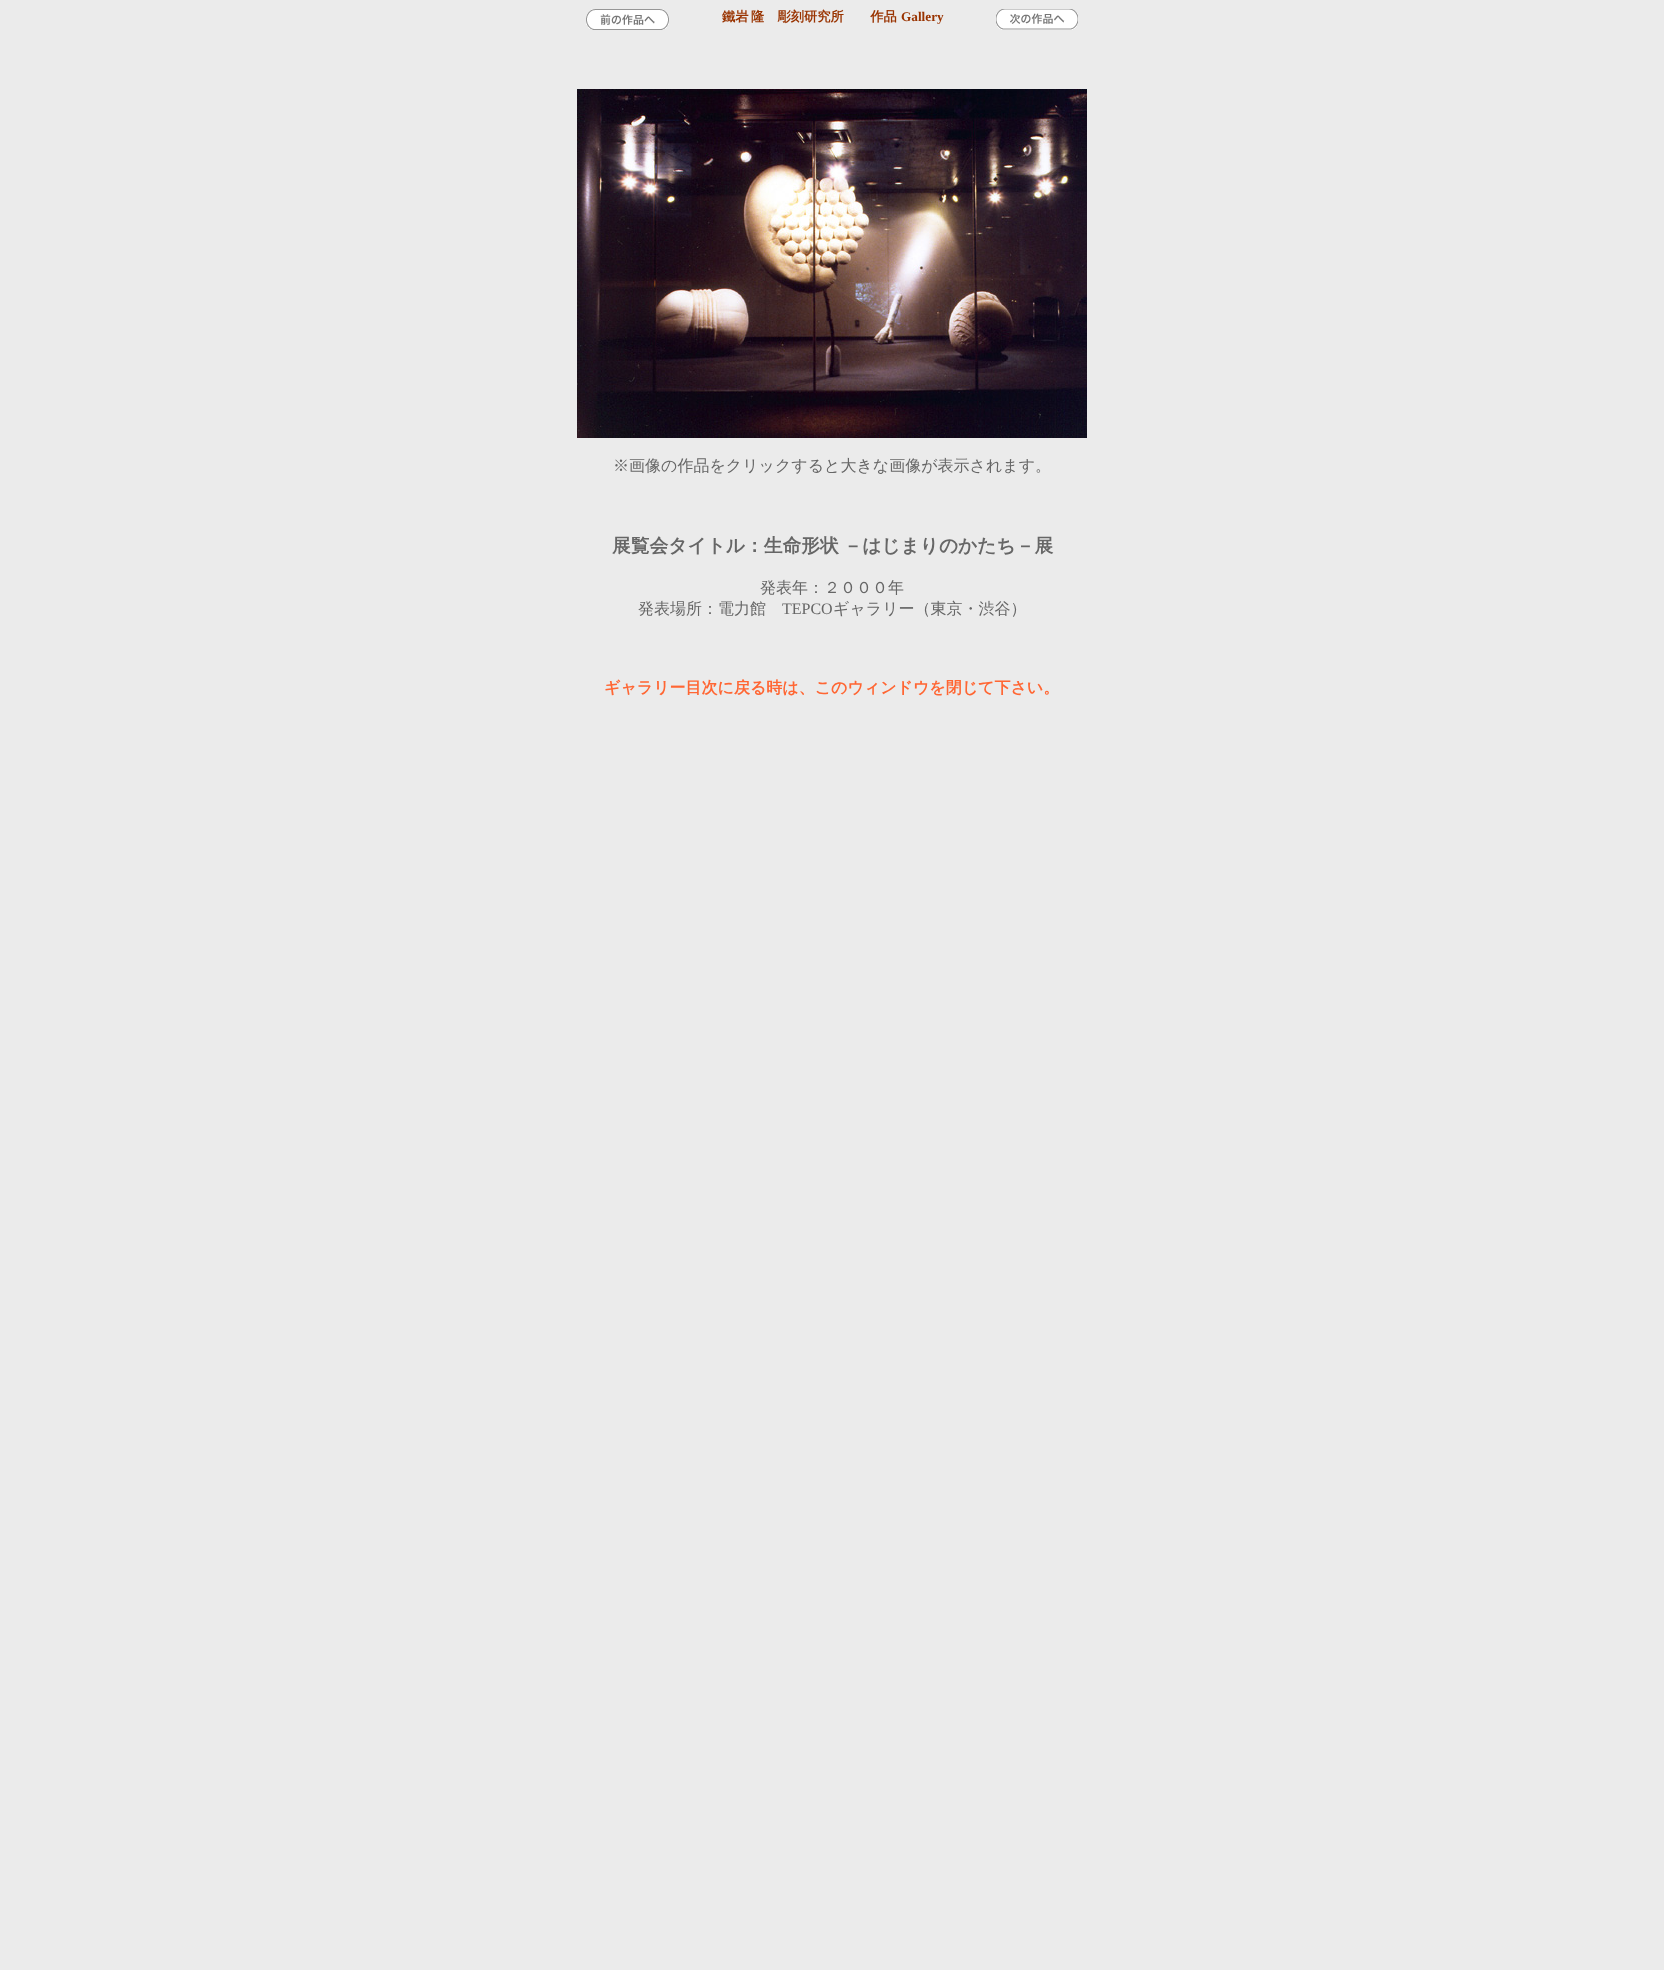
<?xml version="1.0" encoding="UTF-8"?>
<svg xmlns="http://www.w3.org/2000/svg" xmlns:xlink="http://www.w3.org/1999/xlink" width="1664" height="1970">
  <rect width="100%" height="100%" fill="#ebebeb" />
  <image x="586" y="9" width="83" height="21" xlink:href="image1.png" />
  <image x="996" y="9" width="82" height="21" xlink:href="image2.png" />
  <image x="577" y="89" width="510" height="349" xlink:href="image3.png" />
  <text x="722" y="21" style="font-family: WenQuanYi Zen Hei; font-size: 13.25px; font-weight: bold; fill: #993300">鐵岩</text>
  <text x="751" y="21" style="font-family: WenQuanYi Zen Hei; font-size: 13.25px; font-weight: bold; fill: #993300">隆　彫刻研究所　　作品</text>
  <text x="901" y="21" style="font-family: Liberation Serif; font-size: 13.25px; font-weight: bold; fill: #993300">Gallery</text>
  <text x="613" y="471" style="font-family: WenQuanYi Zen Hei; font-size: 16px; font-weight: 500; fill: #666666">※画像の作品をクリックすると大きな画像が表示されます。</text>
  <text x="612" y="552" word-spacing="-1" style="font-family: WenQuanYi Zen Hei; font-size: 18.75px; font-weight: bold; fill: #666666">展覧会タイトル：生命形状 －はじまりのかたち－展</text>
  <text x="760" y="593" style="font-family: WenQuanYi Zen Hei; font-size: 16px; font-weight: 500; fill: #666666">発表年：２０００年</text>
  <text x="638" y="614" style="font-family: WenQuanYi Zen Hei; font-size: 16px; font-weight: 500; fill: #666666">発表場所：電力館</text>
  <text x="782" y="614" style="font-family: Liberation Serif; font-size: 16px; fill: #666666">TEPCO</text>
  <text x="833" y="614" style="font-family: WenQuanYi Zen Hei; font-size: 16px; font-weight: 500; fill: #666666">ギャラリー（東京・渋谷）</text>
  <text x="604" y="693" style="font-family: WenQuanYi Zen Hei; font-size: 16px; font-weight: bold; fill: #ff6633">ギャラリー目次に戻る時は、このウィンドウを閉じて下さい。</text>
</svg>
